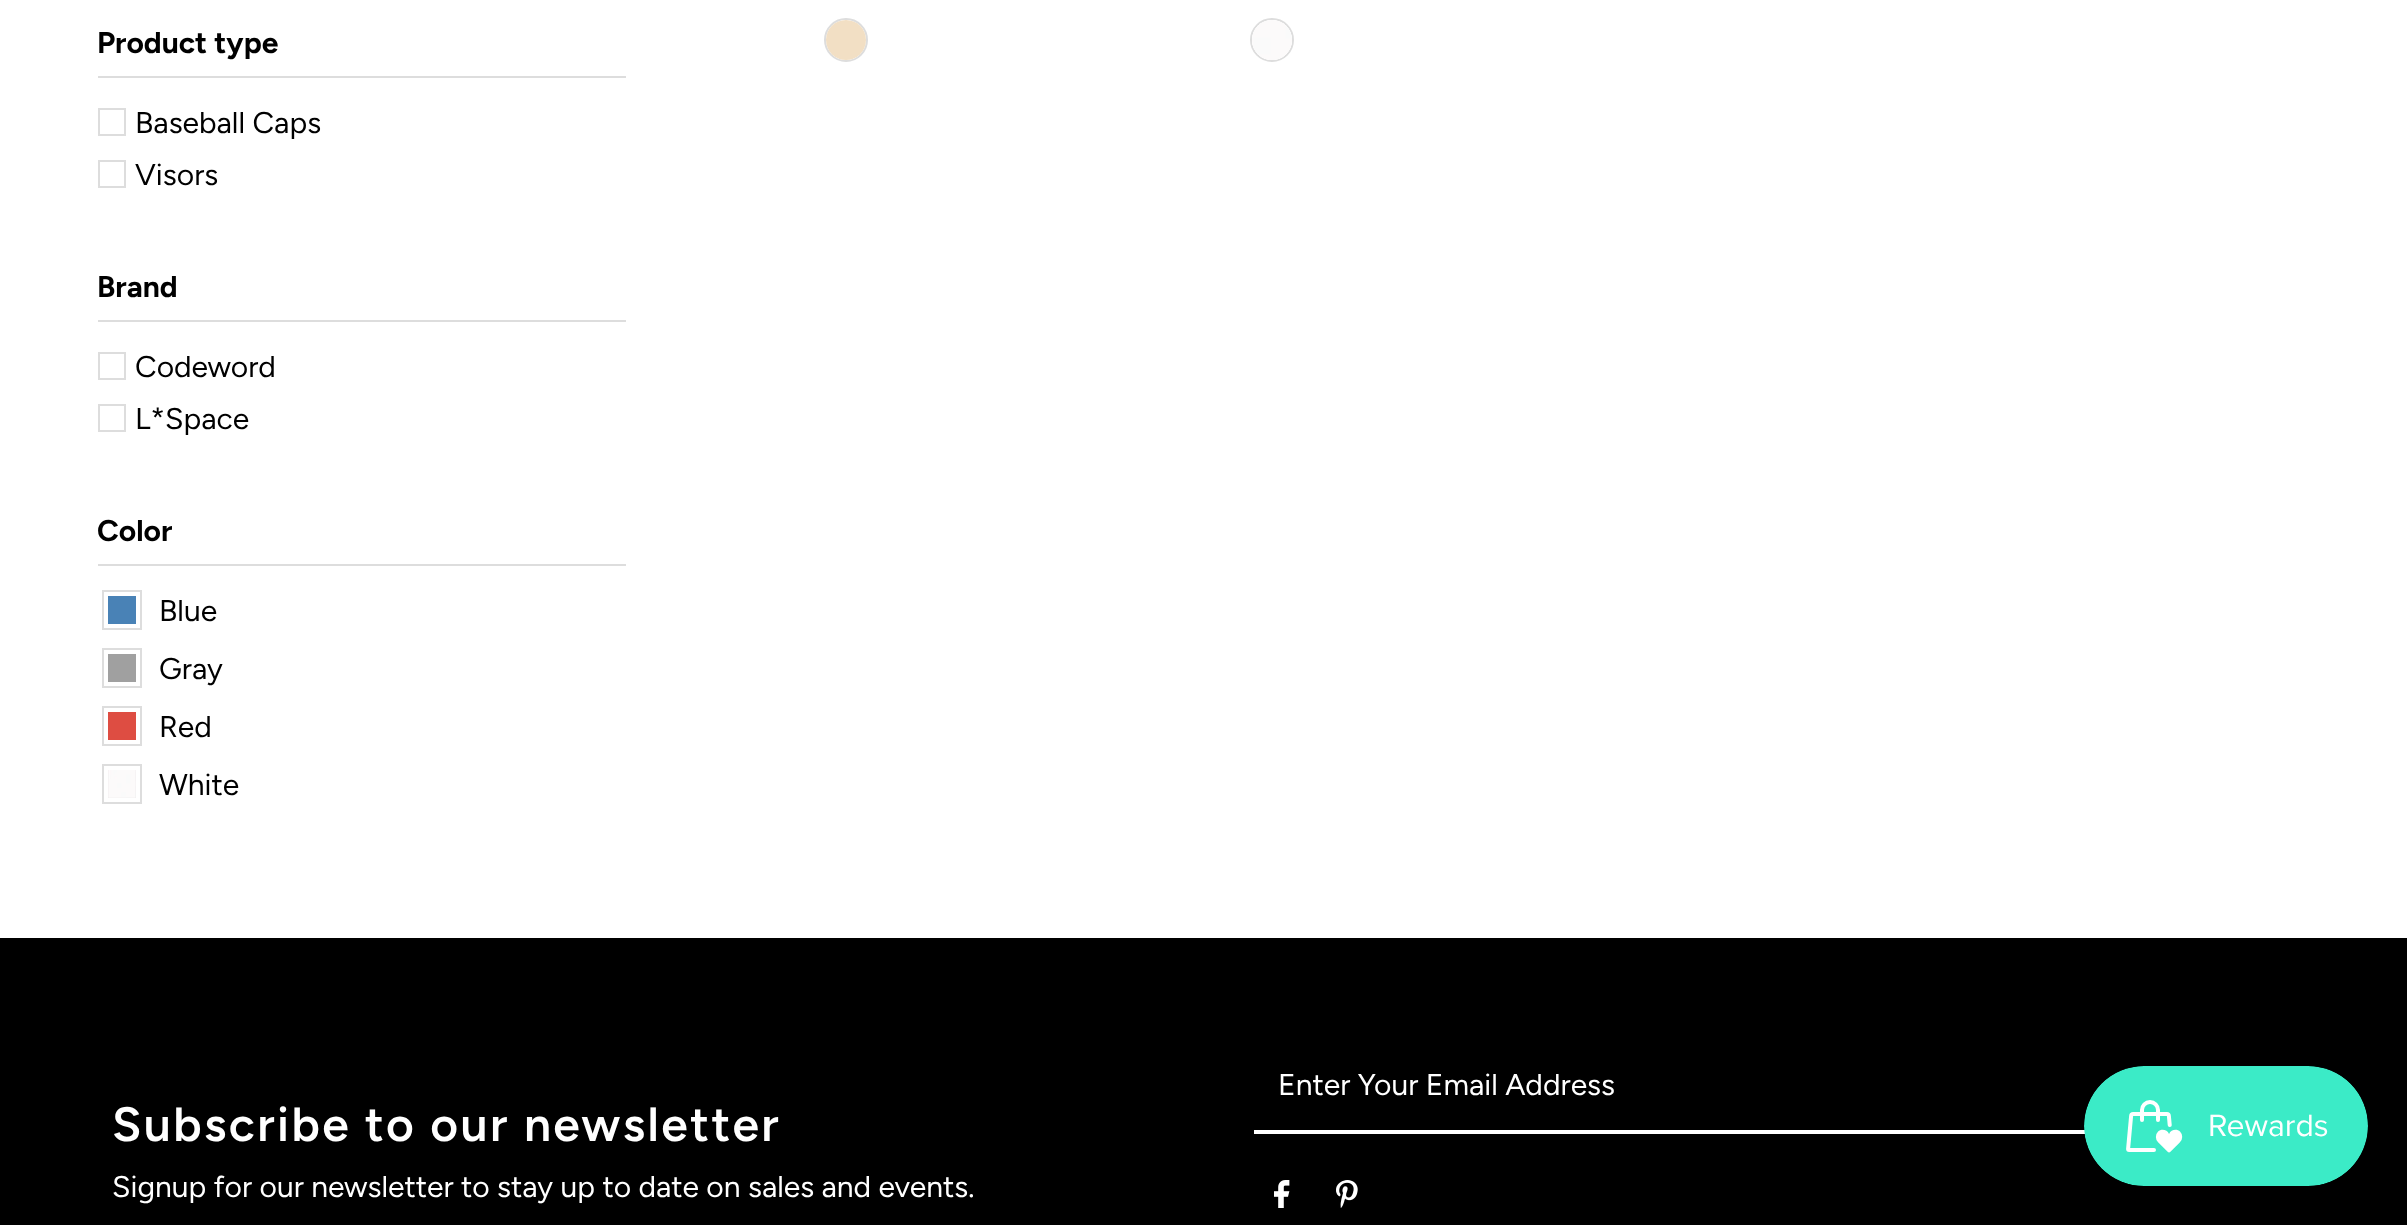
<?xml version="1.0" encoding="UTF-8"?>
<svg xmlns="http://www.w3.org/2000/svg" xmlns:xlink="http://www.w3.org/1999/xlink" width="2407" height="1225">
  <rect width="100%" height="100%" fill="#ffffff" />
  <rect x="98" y="76" width="528" height="2" fill="#dddddd" />
  <rect x="99" y="109" width="26" height="26" fill="none" stroke="#dddddd" stroke-width="2" />
  <rect x="99" y="161" width="26" height="26" fill="none" stroke="#dddddd" stroke-width="2" />
  <rect x="98" y="320" width="528" height="2" fill="#dddddd" />
  <rect x="99" y="353" width="26" height="26" fill="none" stroke="#dddddd" stroke-width="2" />
  <rect x="99" y="405" width="26" height="26" fill="none" stroke="#dddddd" stroke-width="2" />
  <rect x="98" y="564" width="528" height="2" fill="#dddddd" />
  <rect x="103" y="591" width="38" height="38" fill="none" stroke="#dddddd" stroke-width="2" />
  <rect x="108" y="596" width="28" height="28" fill="#4982b6" />
  <rect x="103" y="649" width="38" height="38" fill="none" stroke="#dddddd" stroke-width="2" />
  <rect x="108" y="654" width="28" height="28" fill="#a0a0a0" />
  <rect x="103" y="707" width="38" height="38" fill="none" stroke="#dddddd" stroke-width="2" />
  <rect x="108" y="712" width="28" height="28" fill="#de4d42" />
  <rect x="103" y="765" width="38" height="38" fill="none" stroke="#dddddd" stroke-width="2" />
  <image x="108" y="770" width="28" height="28" xlink:href="image1.png" />
  <circle cx="846" cy="40" r="21" fill="none" stroke="#dddddd" stroke-width="2" />
  <image x="826" y="20" width="40" height="40" xlink:href="image2.png" />
  <circle cx="1272" cy="40" r="21" fill="none" stroke="#dddddd" stroke-width="2" />
  <circle cx="1272" cy="40" r="20" fill="#ffffff" />
  <image x="1252" y="20" width="40" height="40" xlink:href="image3.png" />
  <rect y="938" width="2407" height="287" fill="#000000" />
  <rect x="1254" y="1130" width="831" height="4" fill="#ffffff" />
  <image x="1274" y="1180" width="16" height="28" xlink:href="image4.png" />
  <image x="1336" y="1180" width="22" height="28" xlink:href="image5.png" />
  <image x="2084" y="1066" width="284" height="120" xlink:href="image6.png" />
  <text x="97" y="53" style="font-family: Figtree; font-size: 30px; font-weight: bold; fill: #000000">Product type</text>
  <text x="135" y="133" style="font-family: Figtree; font-size: 30px; fill: #000000">Baseball Caps</text>
  <text x="135" y="185" style="font-family: Figtree; font-size: 30px; fill: #000000">Visors</text>
  <text x="97" y="297" style="font-family: Figtree; font-size: 30px; font-weight: bold; fill: #000000">Brand</text>
  <text x="135" y="377" style="font-family: Figtree; font-size: 30px; fill: #000000">Codeword</text>
  <text x="135" y="429" style="font-family: Figtree; font-size: 30px; fill: #000000">L*Space</text>
  <text x="97" y="541" style="font-family: Figtree; font-size: 30px; font-weight: bold; fill: #000000">Color</text>
  <text x="159" y="621" style="font-family: Figtree; font-size: 30px; fill: #000000">Blue</text>
  <text x="159" y="679" style="font-family: Figtree; font-size: 30px; fill: #000000">Gray</text>
  <text x="159" y="737" style="font-family: Figtree; font-size: 30px; fill: #000000">Red</text>
  <text x="159" y="795" style="font-family: Figtree; font-size: 30px; fill: #000000">White</text>
  <text x="1278" y="1095" style="font-family: Figtree; font-size: 30px; fill: #ffffff">Enter Your Email Address</text>
  <text x="112" y="1141" style="font-family: Figtree; font-size: 48px; font-weight: 600; letter-spacing: 2.4px; fill: #ffffff">Subscribe to our newsletter</text>
  <text x="112" y="1197" style="font-family: Figtree; font-size: 30px; fill: #ffffff">Signup for our newsletter to stay up to date on sales and events.</text>
</svg>
